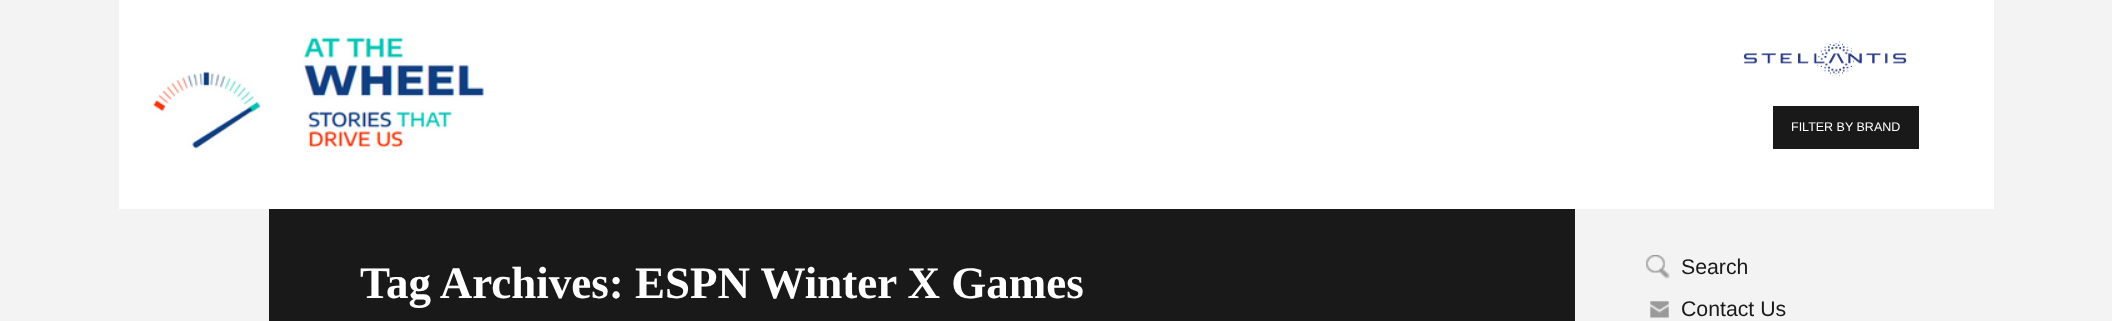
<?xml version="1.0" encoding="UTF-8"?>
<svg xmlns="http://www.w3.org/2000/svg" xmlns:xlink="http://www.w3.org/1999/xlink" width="2112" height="321">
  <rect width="100%" height="100%" fill="#f3f3f3" />
  <rect x="119" width="1875" height="209" fill="#ffffff" />
  <image x="303" y="37" width="181" height="111" xlink:href="image1.png" />
  <image x="1743" y="41" width="164" height="35" xlink:href="image2.png" />
  <image x="153" y="71" width="108" height="78" xlink:href="image3.png" />
  <rect x="1773" y="106" width="146" height="43" fill="#191919" />
  <rect x="269" y="209" width="1306" height="112" fill="#191919" />
  <image x="1646" y="255" width="24" height="24" xlink:href="image4.png" />
  <image x="1650" y="301" width="19" height="17" xlink:href="image5.png" />
  <text x="1791" y="131" style="font-family: Liberation Sans; font-size: 12.5px; fill: #ffffff">FILTER BY BRAND</text>
  <text x="360" y="298" style="font-family: Liberation Serif; font-size: 45px; font-weight: bold; fill: #ffffff">Tag Archives: ESPN Winter X Games</text>
  <text x="1681" y="274" style="font-family: Liberation Sans; font-size: 21.25px; fill: #191919">Search</text>
  <text x="1681" y="316" style="font-family: Liberation Sans; font-size: 21.25px; fill: #191919">Contact Us</text>
</svg>
